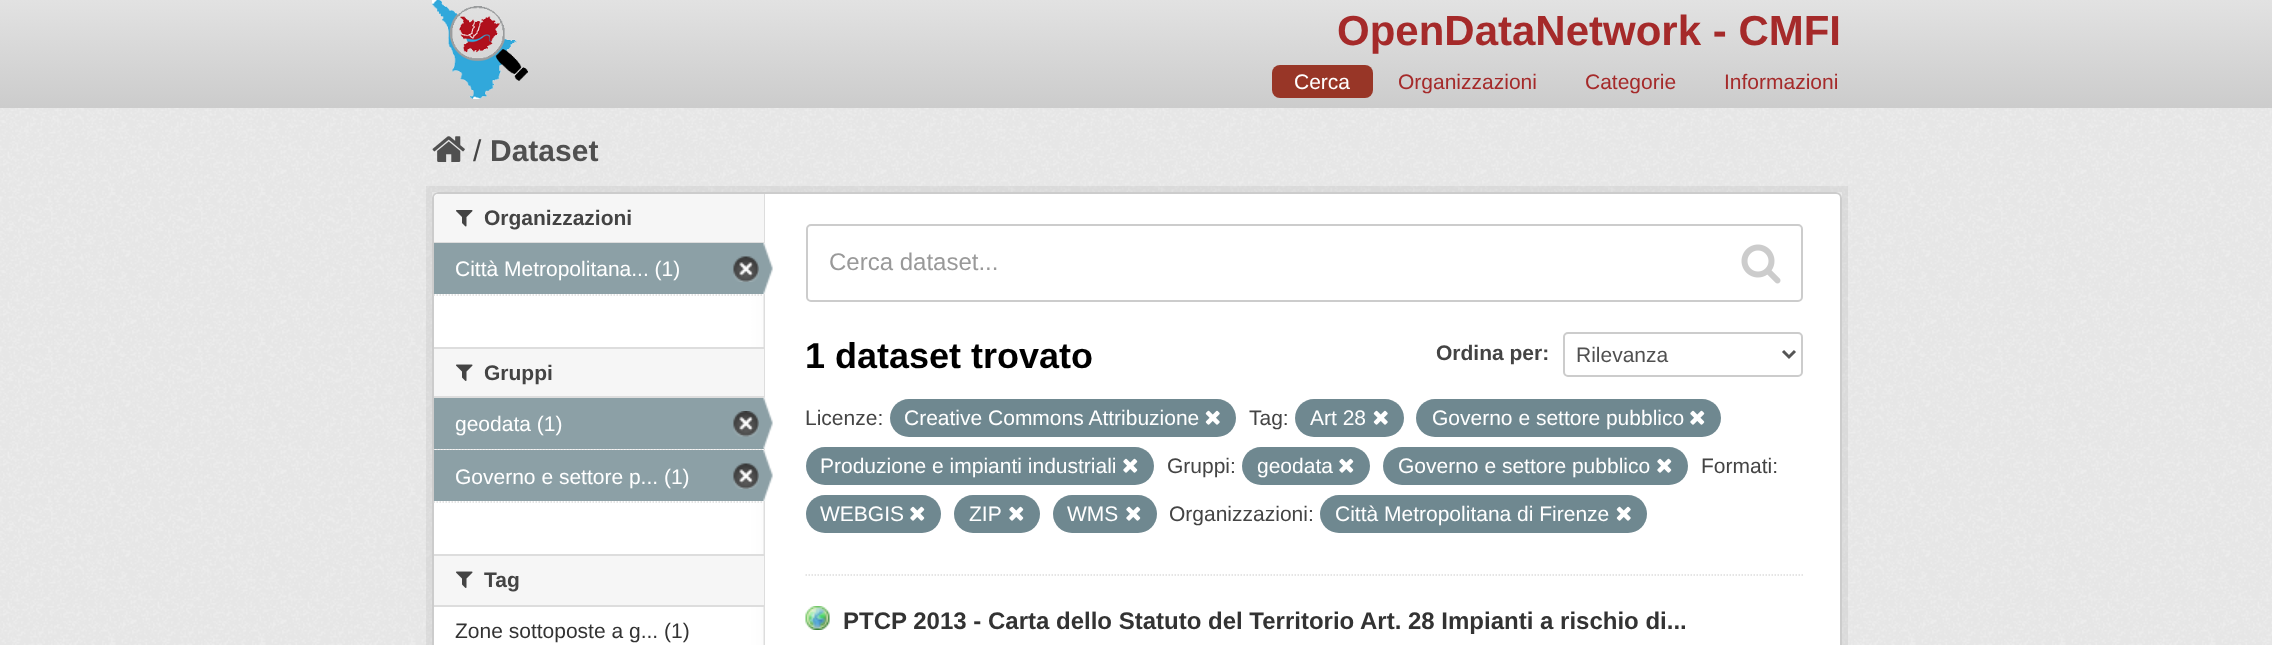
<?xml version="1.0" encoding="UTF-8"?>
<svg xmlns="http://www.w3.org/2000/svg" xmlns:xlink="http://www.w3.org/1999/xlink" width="2272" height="645">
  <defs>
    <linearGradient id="g1" gradientUnits="userSpaceOnUse" x1="1136" y1="0" x2="1136" y2="107"><stop offset="0" stop-color="#e2e2e2" /><stop offset="1" stop-color="#cccccc" /></linearGradient>
  </defs>
  <rect width="100%" height="100%" fill="#ffffff" />
  <rect width="2272" height="107" fill="url(#g1)" />
  <rect y="107" width="2272" height="1" fill="#cccccc" />
  <image x="432" y="0" width="96" height="99" xlink:href="image1.png" />
  <rect x="1272" y="65" width="101" height="33" rx="8" fill="#983627" />
  <rect y="108" width="2272" height="537" fill="#eeeeee" />
  <image x="0" y="108" width="2272" height="537" xlink:href="image2.png" />
  <image x="432" y="136" width="33" height="26" xlink:href="image3.png" />
  <rect x="429" y="189" width="1416" height="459" fill="none" stroke="#000000" stroke-opacity="0.05" stroke-width="6" />
  <rect x="432" y="192" width="1410" height="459" rx="6" fill="#ffffff" />
  <image x="435" y="192" width="330" height="453" xlink:href="image4.png" />
  <rect x="433" y="193" width="1408" height="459" rx="5" fill="none" stroke="#cccccc" stroke-width="2" />
  <path d="M 439 194 h 325 v 49 h -330 v -44 c 0 -3 2 -5 5 -5 z" fill="#f6f6f6" />
  <rect x="434" y="242" width="330" height="1" fill="#dddddd" />
  <image x="456" y="210" width="17" height="17" xlink:href="image5.png" />
  <rect x="434" y="243" width="330" height="51" fill="#8ca0a6" />
  <image x="733" y="256" width="26" height="26" xlink:href="image6.png" />
  <image x="763" y="243" width="10" height="51" xlink:href="image7.png" />
  <path d="M 433.5 295 h 330" fill="none" stroke="#dddddd" stroke-width="1.5" stroke-dasharray="1.5 1.5" />
  <rect x="434" y="349" width="330" height="47" fill="#f6f6f6" />
  <rect x="434" y="347" width="330" height="2" fill="#dddddd" />
  <rect x="434" y="396" width="330" height="2" fill="#dddddd" />
  <image x="456" y="364" width="17" height="17" xlink:href="image8.png" />
  <rect x="434" y="449" width="330" height="1" fill="#f6f6f6" />
  <path d="M 433.5 449 h 330" fill="none" stroke="#dddddd" stroke-width="1.5" stroke-dasharray="1.5 1.5" />
  <rect x="434" y="398" width="330" height="51" fill="#8ca0a6" />
  <image x="733" y="411" width="26" height="26" xlink:href="image9.png" />
  <image x="763" y="397" width="10" height="52" xlink:href="image10.png" />
  <rect x="434" y="450" width="330" height="51" fill="#8ca0a6" />
  <image x="733" y="463" width="26" height="26" xlink:href="image6.png" />
  <image x="763" y="450" width="10" height="51" xlink:href="image7.png" />
  <path d="M 433.5 502 h 330" fill="none" stroke="#dddddd" stroke-width="1.5" stroke-dasharray="1.5 1.5" />
  <rect x="434" y="556" width="330" height="49" fill="#f6f6f6" />
  <rect x="434" y="554" width="330" height="2" fill="#dddddd" />
  <rect x="434" y="605" width="330" height="2" fill="#dddddd" />
  <image x="456" y="571" width="17" height="17" xlink:href="image8.png" />
  <path d="M 805.5 575 h 997.5" fill="none" stroke="#dddddd" stroke-width="1.5" stroke-dasharray="1.5 1.5" />
  <rect x="807" y="225" width="995" height="76" rx="4" fill="none" stroke="#cccccc" stroke-width="2" />
  <image x="1741" y="244" width="40" height="40" xlink:href="image11.png" />
  <rect x="1564" y="333" width="238" height="43" rx="4" fill="none" stroke="#cccccc" stroke-width="2" />
  <path d="M 1783 351 l 6 6 l 6 -6" fill="none" stroke="#555555" stroke-width="3" />
  <rect x="890" y="399" width="346" height="38" rx="19" fill="#6f8890" />
  <image x="1205" y="410" width="15" height="15" xlink:href="image12.png" />
  <rect x="1295" y="399" width="109" height="38" rx="19" fill="#6f8890" />
  <image x="1373" y="410" width="15" height="15" xlink:href="image12.png" />
  <rect x="1416" y="399" width="305" height="38" rx="19" fill="#6f8890" />
  <image x="1690" y="410" width="15" height="15" xlink:href="image13.png" />
  <rect x="806" y="447" width="348" height="38" rx="19" fill="#6f8890" />
  <image x="1123" y="458" width="15" height="15" xlink:href="image13.png" />
  <rect x="1242" y="447" width="128" height="38" rx="19" fill="#6f8890" />
  <image x="1339" y="458" width="15" height="15" xlink:href="image13.png" />
  <rect x="1383" y="447" width="305" height="38" rx="19" fill="#6f8890" />
  <image x="1657" y="458" width="15" height="15" xlink:href="image13.png" />
  <rect x="806" y="495" width="135" height="38" rx="19" fill="#6f8890" />
  <image x="910" y="506" width="15" height="15" xlink:href="image13.png" />
  <rect x="954" y="495" width="86" height="38" rx="19" fill="#6f8890" />
  <image x="1009" y="506" width="15" height="15" xlink:href="image13.png" />
  <rect x="1053" y="495" width="104" height="38" rx="19" fill="#6f8890" />
  <image x="1126" y="506" width="15" height="15" xlink:href="image13.png" />
  <rect x="1320" y="495" width="327" height="38" rx="19" fill="#6f8890" />
  <image x="1616" y="506" width="15" height="15" xlink:href="image12.png" />
  <image x="805" y="606" width="25" height="24" xlink:href="image14.png" />
  <text x="1337" y="45" style="font-family: Liberation Sans; font-size: 42px; font-weight: bold; fill: #a52a2a">OpenDataNetwork - CMFI</text>
  <text x="1294" y="89" style="font-family: Liberation Sans; font-size: 21px; fill: #ffffff">Cerca</text>
  <text x="1398" y="89" style="font-family: Liberation Sans; font-size: 21px; fill: #a52a2a">Organizzazioni</text>
  <text x="1585" y="89" style="font-family: Liberation Sans; font-size: 21px; fill: #a52a2a">Categorie</text>
  <text x="1724" y="89" style="font-family: Liberation Sans; font-size: 21px; fill: #a52a2a">Informazioni</text>
  <text x="473" y="161" style="font-family: Liberation Sans; font-size: 30px; fill: #444444">/</text>
  <text x="490" y="161" style="font-family: Liberation Sans; font-size: 30px; font-weight: bold; fill: #505050">Dataset</text>
  <text x="484" y="225" style="font-family: Liberation Sans; font-size: 21px; font-weight: bold; fill: #444444">Organizzazioni</text>
  <text x="455" y="276" style="font-family: Liberation Sans; font-size: 21px; fill: #ffffff">Città Metropolitana... (1)</text>
  <text x="484" y="380" style="font-family: Liberation Sans; font-size: 21px; font-weight: bold; fill: #444444">Gruppi</text>
  <text x="455" y="431" style="font-family: Liberation Sans; font-size: 21px; fill: #ffffff">geodata (1)</text>
  <text x="455" y="484" style="font-family: Liberation Sans; font-size: 21px; fill: #ffffff">Governo e settore p... (1)</text>
  <text x="484" y="587" style="font-family: Liberation Sans; font-size: 21px; font-weight: bold; fill: #444444">Tag</text>
  <text x="455" y="638" style="font-family: Liberation Sans; font-size: 21px; fill: #333333">Zone sottoposte a g... (1)</text>
  <text x="829" y="270" style="font-family: Liberation Sans; font-size: 24px; fill: #999999">Cerca dataset...</text>
  <text x="805" y="368" style="font-family: Liberation Sans; font-size: 36px; font-weight: bold; fill: #000000">1 dataset trovato</text>
  <text x="1436" y="360" style="font-family: Liberation Sans; font-size: 21px; font-weight: bold; fill: #444444">Ordina per:</text>
  <text x="1576" y="362" style="font-family: Liberation Sans; font-size: 21px; fill: #505050">Rilevanza</text>
  <text x="805" y="425" style="font-family: Liberation Sans; font-size: 21px; fill: #444444">Licenze:</text>
  <text x="904" y="425" style="font-family: Liberation Sans; font-size: 21px; fill: #ffffff">Creative Commons Attribuzione</text>
  <text x="1249" y="425" style="font-family: Liberation Sans; font-size: 21px; fill: #444444">Tag:</text>
  <text x="1310" y="425" style="font-family: Liberation Sans; font-size: 21px; fill: #ffffff">Art 28</text>
  <text x="1432" y="425" style="font-family: Liberation Sans; font-size: 21px; fill: #ffffff">Governo e settore pubblico</text>
  <text x="820" y="473" style="font-family: Liberation Sans; font-size: 21px; fill: #ffffff">Produzione e impianti industriali</text>
  <text x="1167" y="473" style="font-family: Liberation Sans; font-size: 21px; fill: #444444">Gruppi:</text>
  <text x="1257" y="473" style="font-family: Liberation Sans; font-size: 21px; fill: #ffffff">geodata</text>
  <text x="1398" y="473" style="font-family: Liberation Sans; font-size: 21px; fill: #ffffff">Governo e settore pubblico</text>
  <text x="1701" y="473" style="font-family: Liberation Sans; font-size: 21px; fill: #444444">Formati:</text>
  <text x="820" y="521" style="font-family: Liberation Sans; font-size: 21px; fill: #ffffff">WEBGIS</text>
  <text x="969" y="521" style="font-family: Liberation Sans; font-size: 21px; fill: #ffffff">ZIP</text>
  <text x="1067" y="521" style="font-family: Liberation Sans; font-size: 21px; fill: #ffffff">WMS</text>
  <text x="1169" y="521" style="font-family: Liberation Sans; font-size: 21px; fill: #444444">Organizzazioni:</text>
  <text x="1335" y="521" style="font-family: Liberation Sans; font-size: 21px; fill: #ffffff">Città Metropolitana di Firenze</text>
  <text x="843" y="629" style="font-family: Liberation Sans; font-size: 24px; font-weight: bold; fill: #333333">PTCP 2013 - Carta dello Statuto del Territorio Art. 28 Impianti a rischio di...</text>
</svg>
